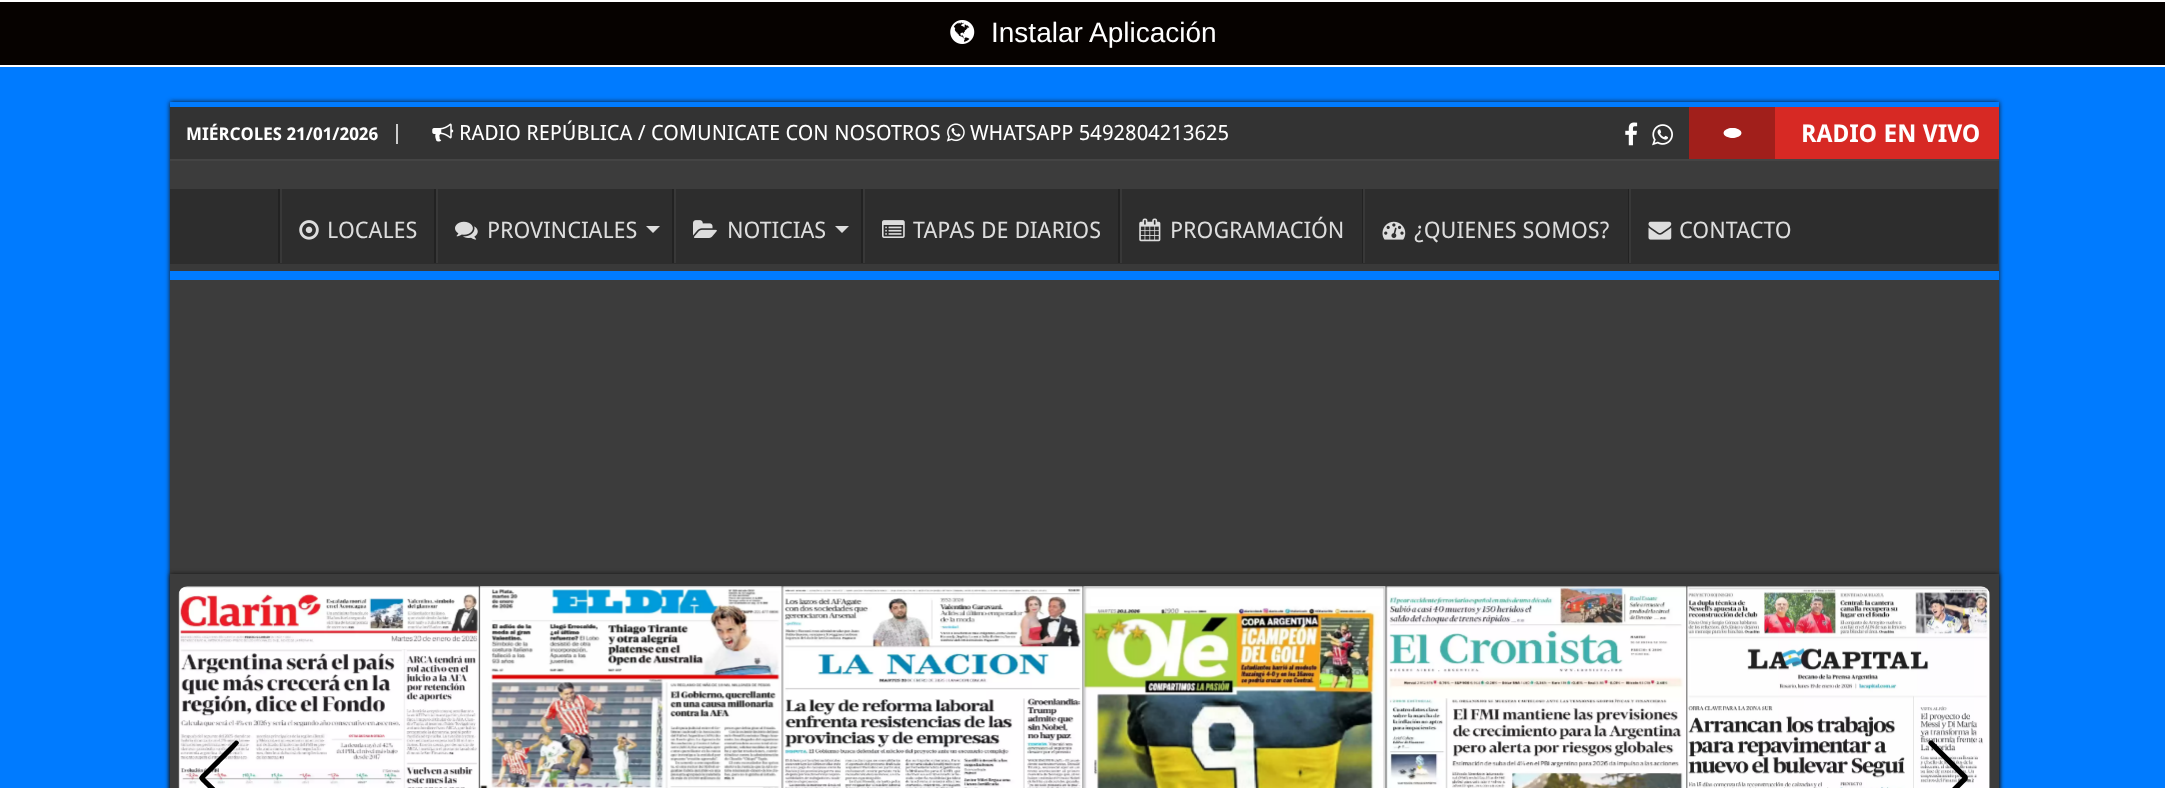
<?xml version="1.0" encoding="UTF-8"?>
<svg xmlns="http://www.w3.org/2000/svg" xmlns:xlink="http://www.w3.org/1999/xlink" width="2165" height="788">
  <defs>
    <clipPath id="clip1"><rect x="170" y="189" width="1829" height="82" /></clipPath>
  </defs>
  <rect width="100%" height="100%" fill="#007bff" />
  <rect y="2" width="2165" height="63" fill="#060200" />
  <rect width="2165" height="2" fill="#ffffff" />
  <rect y="65" width="2165" height="2" fill="#ffffff" />
  <image x="950" y="20" width="25" height="24" xlink:href="image1.png" />
  <rect x="170" y="102" width="1829" height="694" fill="#141414" filter="blur(2.5px)" />
  <rect x="170" y="161" width="1829" height="413" fill="#3c3c3c" />
  <rect x="170" y="102" width="1829" height="5" fill="#007bff" />
  <rect x="170" y="107" width="1519" height="52" fill="#333333" />
  <rect x="170" y="159" width="1829" height="2" fill="#444444" />
  <rect x="396" y="124" width="2" height="20" fill="#cccccc" />
  <image x="432" y="123" width="22" height="19" xlink:href="image2.png" />
  <image x="946" y="123" width="19" height="19" xlink:href="image3.png" />
  <image x="1625" y="122" width="13" height="24" xlink:href="image4.png" />
  <image x="1652" y="124" width="21" height="22" xlink:href="image5.png" />
  <rect x="1775" y="107" width="224" height="52" fill="#d72924" />
  <rect x="1689" y="107" width="86" height="52" fill="#a11f1b" />
  <ellipse cx="1732.5" cy="133" rx="9" ry="5" fill="#ffffff" />
  <rect x="1727" y="128" width="11" height="10" rx="5" fill="#ffffff" />
  <rect x="170" y="189" width="1828" height="75" fill="#2d2d2d" />
  <g clip-path="url(#clip1)">
    <path d="M -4 16 h 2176 v 428 h -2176 z m 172 162 h 1829 c 1 0 1 1 1 2 v 82 c 0 1 0 2 -1 2 h -1829 c -1 0 -2 -1 -2 -2 v -82 c 0 -1 1 -2 2 -2 z" fill="#393939" fill-rule="evenodd" />
  </g>
  <rect x="170" y="271" width="1829" height="9" fill="#007bff" />
  <rect x="278" y="189" width="2" height="74" fill="#222222" />
  <rect x="280" y="189" width="2" height="74" fill="#383838" />
  <image x="299" y="220" width="20" height="20" xlink:href="image6.png" />
  <rect x="434" y="189" width="2" height="74" fill="#222222" />
  <rect x="436" y="189" width="2" height="74" fill="#383838" />
  <image x="455" y="221" width="23" height="19" xlink:href="image7.png" />
  <path d="M 646 226 h 14 l -7 7 z" fill="#dddddd" />
  <rect x="672" y="189" width="2" height="74" fill="#222222" />
  <rect x="674" y="189" width="2" height="74" fill="#383838" />
  <image x="693" y="220" width="24" height="18" xlink:href="image8.png" />
  <path d="M 835 226 h 14 l -7 7 z" fill="#dddddd" />
  <rect x="861" y="189" width="2" height="74" fill="#222222" />
  <rect x="863" y="189" width="2" height="74" fill="#383838" />
  <image x="882" y="220" width="23" height="18" xlink:href="image9.png" />
  <rect x="1118" y="189" width="2" height="74" fill="#222222" />
  <rect x="1120" y="189" width="2" height="74" fill="#383838" />
  <image x="1139" y="218" width="22" height="24" xlink:href="image10.png" />
  <rect x="1362" y="189" width="1" height="74" fill="#222222" />
  <rect x="1363" y="189" width="2" height="74" fill="#383838" />
  <image x="1382" y="221" width="24" height="19" xlink:href="image11.png" />
  <rect x="1628" y="189" width="1" height="74" fill="#222222" />
  <rect x="1629" y="189" width="2" height="74" fill="#383838" />
  <image x="1648" y="221" width="24" height="19" xlink:href="image12.png" />
  <rect x="170" y="574" width="1829" height="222" fill="#141414" filter="blur(2.5px)" />
  <rect x="170" y="574" width="1829" height="214" fill="#3c3c3c" />
  <image x="178" y="586" width="302" height="202" xlink:href="image13.png" />
  <image x="480" y="586" width="303" height="202" xlink:href="image14.png" />
  <image x="781" y="586" width="302" height="202" xlink:href="image15.png" />
  <image x="1083" y="586" width="303" height="202" xlink:href="image16.png" />
  <image x="1385" y="586" width="302" height="202" xlink:href="image17.png" />
  <image x="1687" y="586" width="303" height="202" xlink:href="image18.png" />
  <image x="1989" y="592" width="1" height="196" xlink:href="image19.png" />
  <path d="M 235 741 c 1 -1 4 0 4 2 c 0 2 -30 31 -34 35 l 34 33 v 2 c -1 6 -6 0 -10 -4 l -23 -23 c -9 -9 -9 -7 0 -16 z" fill="#000000" />
  <image x="1928" y="740" width="40" height="48" xlink:href="image20.png" />
  <text x="991" y="42" style="font-family: Liberation Sans; font-size: 28px; fill: #ffffff">Instalar Aplicación</text>
  <text x="186" y="140" style="font-family: Droid Sans; font-size: 17.5px; font-weight: bold; fill: #ffffff">MIÉRCOLES 21/01/2026</text>
  <text x="459" y="140" style="font-family: Droid Sans; font-size: 21px; fill: #ffffff">RADIO REPÚBLICA / COMUNICATE CON NOSOTROS</text>
  <text x="970" y="140" style="font-family: Droid Sans; font-size: 21px; fill: #ffffff">WHATSAPP 5492804213625</text>
  <text x="1801" y="142" style="font-family: Droid Sans; font-size: 24.5px; font-weight: bold; fill: #ffffff">RADIO EN VIVO</text>
  <text x="327" y="238" style="font-family: Droid Sans; font-size: 22.75px; fill: #dddddd">LOCALES</text>
  <text x="487" y="238" style="font-family: Droid Sans; font-size: 22.75px; fill: #dddddd">PROVINCIALES</text>
  <text x="727" y="238" style="font-family: Droid Sans; font-size: 22.75px; fill: #dddddd">NOTICIAS</text>
  <text x="913" y="238" style="font-family: Droid Sans; font-size: 22.75px; fill: #dddddd">TAPAS DE DIARIOS</text>
  <text x="1170" y="238" style="font-family: Droid Sans; font-size: 22.75px; fill: #dddddd">PROGRAMACIÓN</text>
  <text x="1414" y="238" style="font-family: Droid Sans; font-size: 22.75px; fill: #dddddd">¿QUIENES SOMOS?</text>
  <text x="1679" y="238" style="font-family: Droid Sans; font-size: 22.75px; fill: #dddddd">CONTACTO</text>
</svg>
